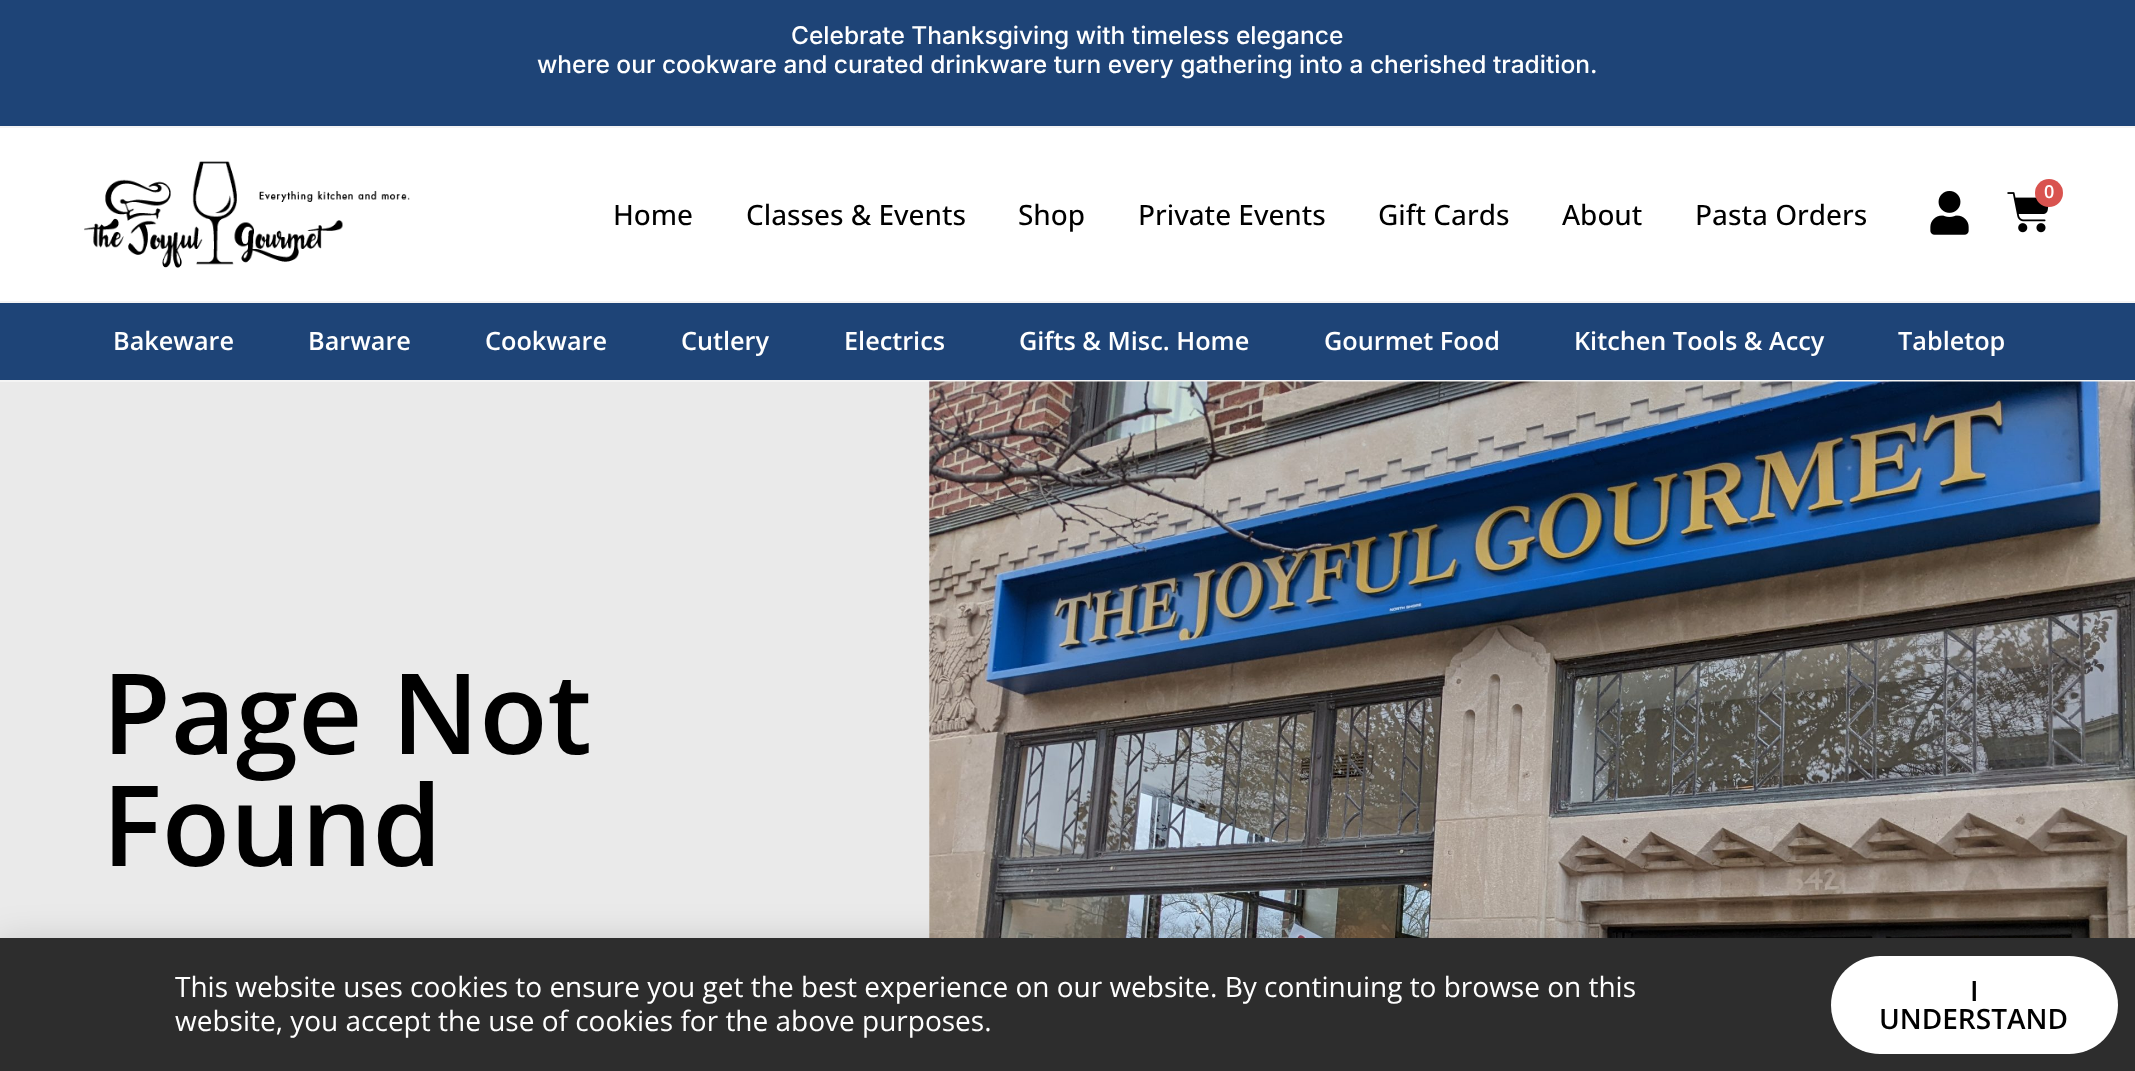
<?xml version="1.0" encoding="UTF-8"?>
<svg xmlns="http://www.w3.org/2000/svg" xmlns:xlink="http://www.w3.org/1999/xlink" width="2135" height="1071">
  <rect width="100%" height="100%" fill="#ffffff" />
  <rect width="2135" height="126" fill="#1e4477" />
  <rect y="126" width="2135" height="2" fill="#f4f4f4" />
  <rect y="301" width="2135" height="2" fill="#f4f4f4" />
  <image x="84" y="161" width="326" height="107" xlink:href="image1.png" />
  <image x="1930" y="191" width="39" height="44" xlink:href="image2.png" />
  <image x="2007" y="192" width="42" height="41" xlink:href="image3.png" />
  <circle cx="2049" cy="193" r="14" fill="#d9534f" />
  <rect y="303" width="2135" height="77" fill="#1e4477" />
  <rect y="380" width="2135" height="2" fill="#f4f4f4" />
  <rect y="382" width="929" height="556" fill="#eaeaea" />
  <image x="929" y="381" width="1206" height="557" xlink:href="image4.png" />
  <rect x="-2" y="947" width="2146" height="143" fill="#000000" fill-opacity="0.2" filter="blur(20px)" />
  <rect y="938" width="2135" height="133" fill="#2d2d2d" />
  <rect x="1831" y="956" width="287" height="98" rx="49" fill="#ffffff" />
  <text x="791" y="44" style="font-family: Inter; font-size: 24.5px; font-weight: 500; fill: #ffffff">Celebrate Thanksgiving with timeless elegance</text>
  <text x="537" y="73" style="font-family: Inter; font-size: 24.5px; font-weight: 500; fill: #ffffff">where our cookware and curated drinkware turn every gathering into a cherished tradition.</text>
  <text x="613" y="225" style="font-family: Open Sans; font-size: 28px; font-weight: 500; fill: #000000">Home</text>
  <text x="746" y="225" style="font-family: Open Sans; font-size: 28px; font-weight: 500; fill: #000000">Classes &amp; Events</text>
  <text x="1018" y="225" style="font-family: Open Sans; font-size: 28px; font-weight: 500; fill: #000000">Shop</text>
  <text x="1138" y="225" style="font-family: Open Sans; font-size: 28px; font-weight: 500; fill: #000000">Private Events</text>
  <text x="1378" y="225" style="font-family: Open Sans; font-size: 28px; font-weight: 500; fill: #000000">Gift Cards</text>
  <text x="1562" y="225" style="font-family: Open Sans; font-size: 28px; font-weight: 500; fill: #000000">About</text>
  <text x="1695" y="225" style="font-family: Open Sans; font-size: 28px; font-weight: 500; fill: #000000">Pasta Orders</text>
  <text x="2044" y="198" style="font-family: Open Sans; font-size: 18px; font-weight: 600; fill: #ffffff">0</text>
  <text x="113" y="350" style="font-family: Open Sans; font-size: 25.25px; font-weight: 600; fill: #ffffff">Bakeware</text>
  <text x="308" y="350" style="font-family: Open Sans; font-size: 25.25px; font-weight: 600; fill: #ffffff">Barware</text>
  <text x="485" y="350" style="font-family: Open Sans; font-size: 25.25px; font-weight: 600; fill: #ffffff">Cookware</text>
  <text x="681" y="350" style="font-family: Open Sans; font-size: 25.25px; font-weight: 600; fill: #ffffff">Cutlery</text>
  <text x="844" y="350" style="font-family: Open Sans; font-size: 25.25px; font-weight: 600; fill: #ffffff">Electrics</text>
  <text x="1019" y="350" style="font-family: Open Sans; font-size: 25.25px; font-weight: 600; fill: #ffffff">Gifts &amp; Misc. Home</text>
  <text x="1324" y="350" style="font-family: Open Sans; font-size: 25.25px; font-weight: 600; fill: #ffffff">Gourmet Food</text>
  <text x="1574" y="350" style="font-family: Open Sans; font-size: 25.25px; font-weight: 600; fill: #ffffff">Kitchen Tools &amp; Accy</text>
  <text x="1898" y="350" style="font-family: Open Sans; font-size: 25.25px; font-weight: 600; fill: #ffffff">Tabletop</text>
  <text x="102" y="754" style="font-family: Open Sans; font-size: 112px; font-weight: 600; fill: #000000">Page Not</text>
  <text x="102" y="866" style="font-family: Open Sans; font-size: 112px; font-weight: 600; fill: #000000">Found</text>
  <text x="175" y="997" style="font-family: Open Sans; font-size: 28px; fill: #ffffff">This website uses cookies to ensure you get the best experience on our website. By continuing to browse on this</text>
  <text x="175" y="1031" style="font-family: Open Sans; font-size: 28px; fill: #ffffff">website, you accept the use of cookies for the above purposes.</text>
  <text x="1970" y="1001" style="font-family: Open Sans; font-size: 28px; font-weight: 600; fill: #000000">I</text>
  <text x="1879" y="1029" style="font-family: Open Sans; font-size: 28px; font-weight: 600; fill: #000000">UNDERSTAND</text>
</svg>
